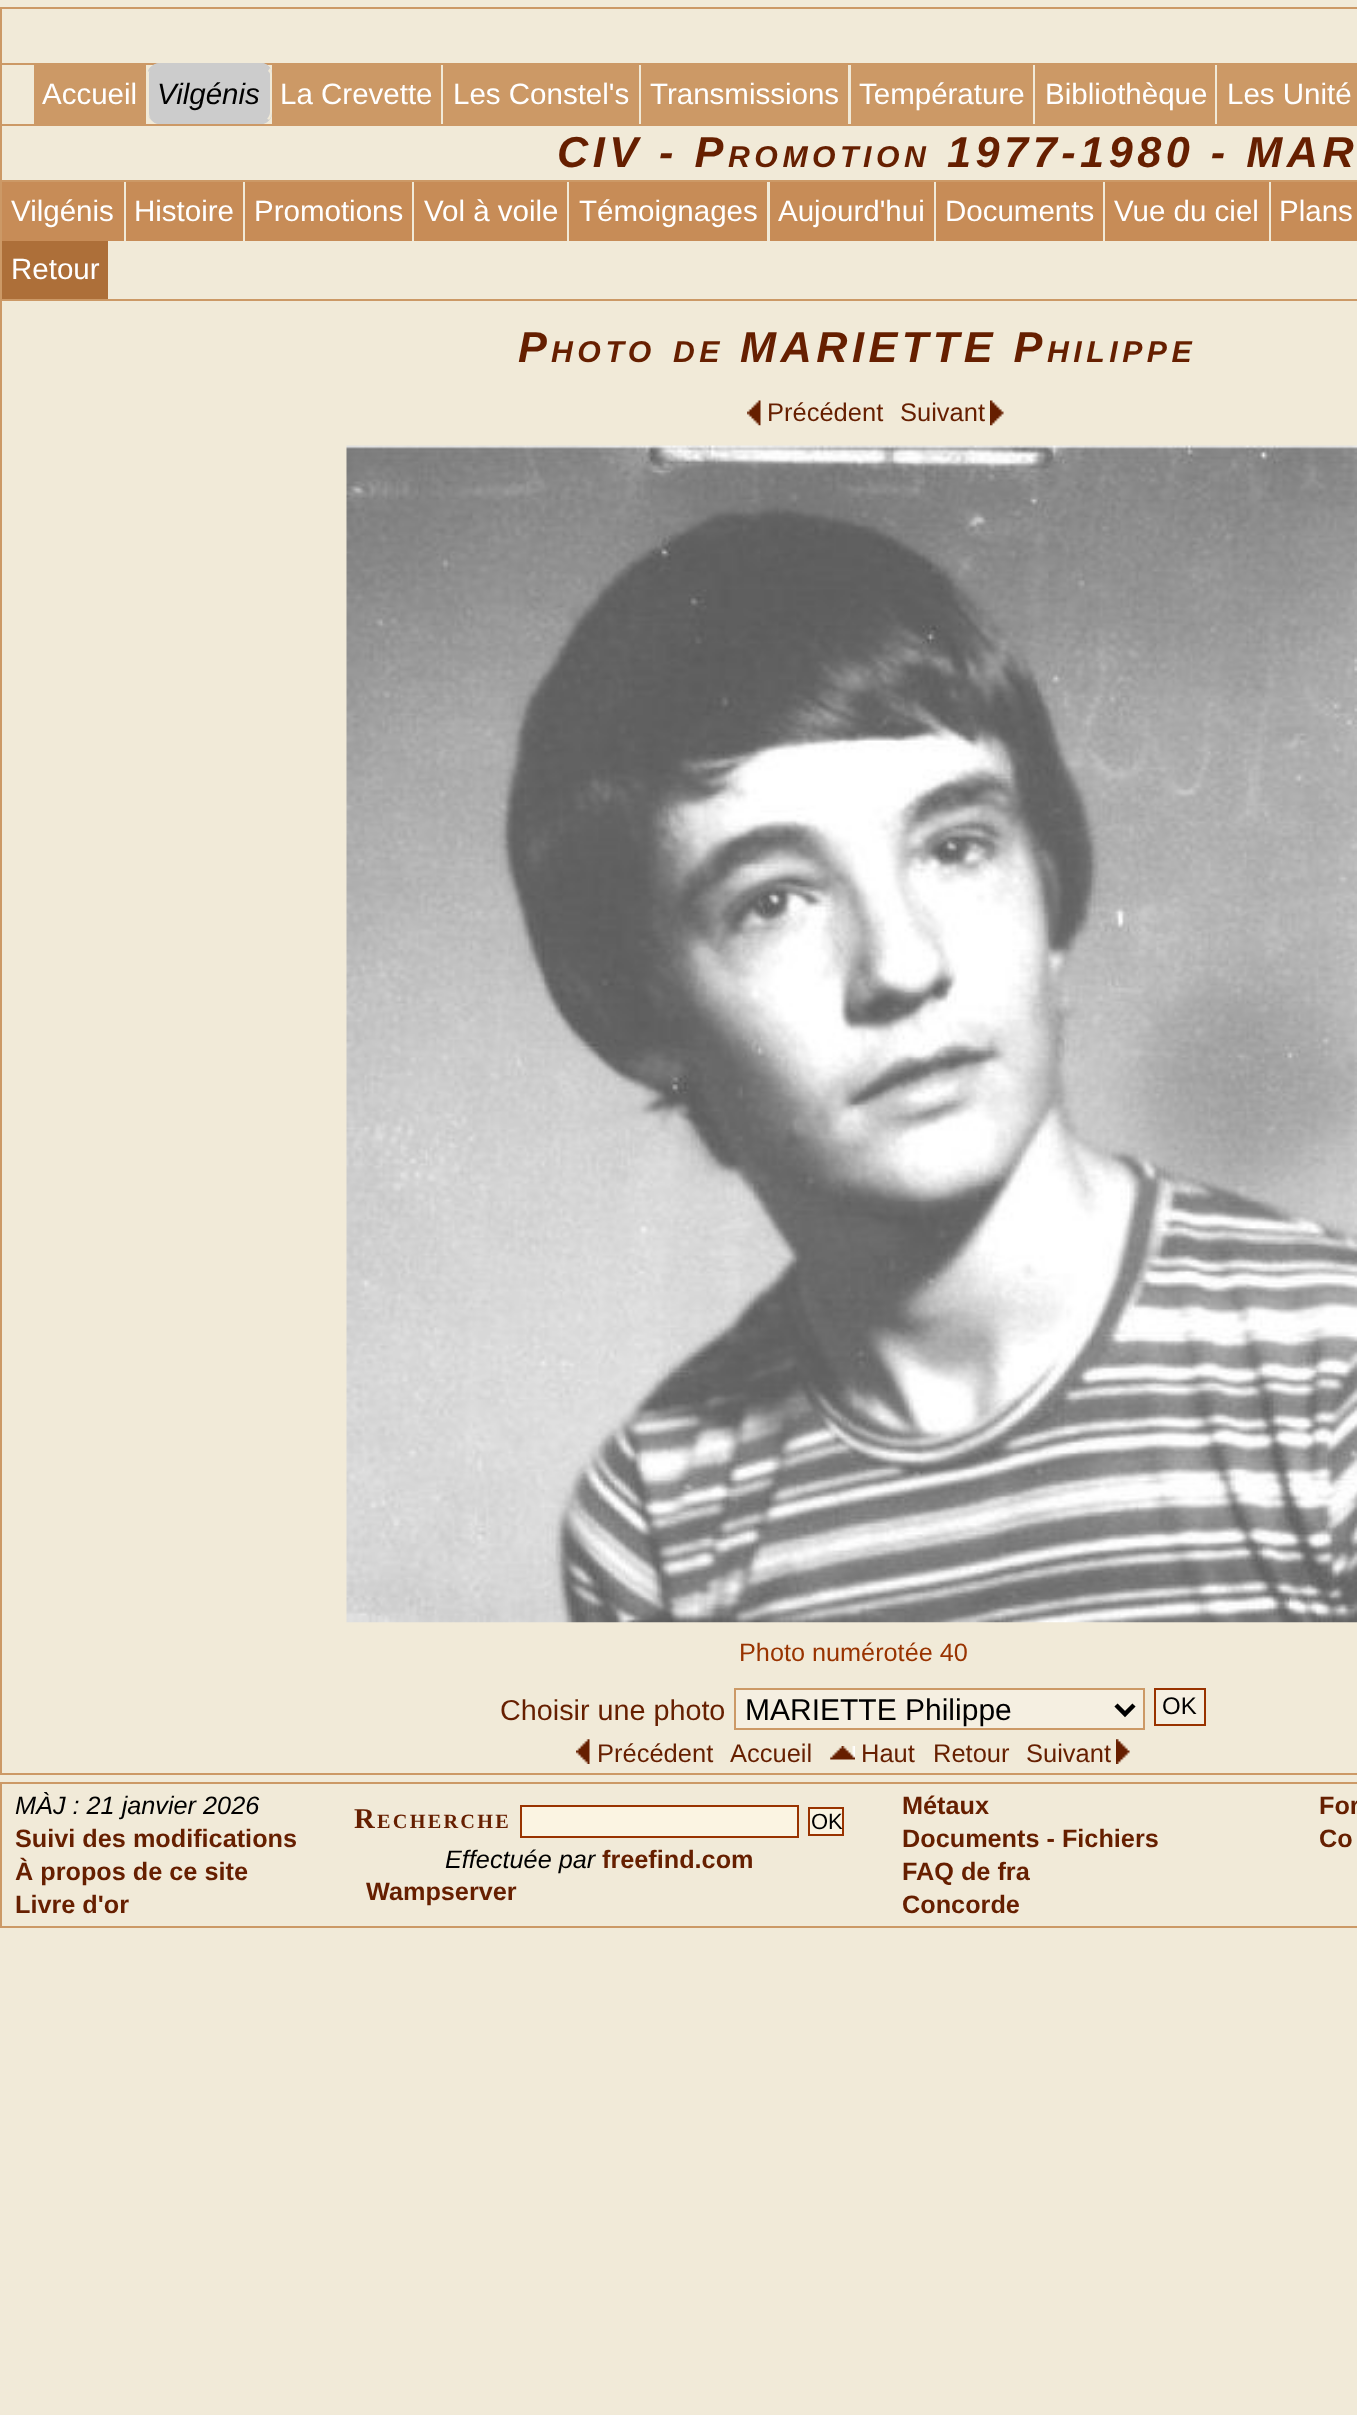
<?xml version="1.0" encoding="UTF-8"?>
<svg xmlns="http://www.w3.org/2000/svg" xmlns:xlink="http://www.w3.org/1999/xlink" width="1357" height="2415">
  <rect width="100%" height="100%" fill="#f1ead8" />
  <rect y="7" width="1357" height="2" fill="#cc9966" />
  <rect y="7" width="2" height="295" fill="#cc9966" />
  <rect x="2" y="63" width="1355" height="2" fill="#cc9966" />
  <rect x="2" y="124" width="1355" height="2" fill="#cc9966" />
  <rect x="34" y="65" width="112" height="59" fill="#cc9966" />
  <rect x="149" y="63" width="123" height="61" rx="11" fill="#cccccc" />
  <path d="M 160 63 c -5 0 -12 4 -12 9 c 2 -2 7 -4 12 -4 h 101 c 3 0 6 1 7 3 l 2 -3 c -2 -3 -5 -5 -9 -5 z" fill="#cccccc" />
  <path d="M 267 119 c 2 -2 3 -5 3 -7 v -38 c 0 -1 -1 -2 -2 -3 l 2 -3 c 1 1 2 4 2 6 v 38 c 0 3 -1 6 -3 8 z" fill="#f1ead8" />
  <path d="M 148 115 c 2 4 7 7 12 7 h 101 c 3 0 5 -1 6 -3 l 2 1 c -2 2 -4 3 -6 4 h -105 c -4 -1 -8 -4 -10 -9 z" fill="#cccccc" />
  <rect x="272" y="65" width="169" height="59" fill="#cc9966" />
  <rect x="443" y="65" width="196" height="59" fill="#cc9966" />
  <rect x="641" y="65" width="207" height="59" fill="#cc9966" />
  <rect x="851" y="65" width="182" height="59" fill="#cc9966" />
  <rect x="1035" y="65" width="180" height="59" fill="#cc9966" />
  <rect x="1217" y="65" width="140" height="59" fill="#cc9966" />
  <rect x="2" y="180" width="1355" height="2" fill="#cc9966" />
  <rect x="2" y="299" width="1355" height="2" fill="#cc9966" />
  <rect x="2" y="182" width="122" height="59" fill="#c78c57" />
  <rect x="126" y="182" width="117" height="59" fill="#c78c57" />
  <rect x="245" y="182" width="167" height="59" fill="#c78c57" />
  <rect x="414" y="182" width="153" height="59" fill="#c78c57" />
  <rect x="569" y="182" width="198" height="59" fill="#c78c57" />
  <rect x="770" y="182" width="164" height="59" fill="#c78c57" />
  <rect x="936" y="182" width="167" height="59" fill="#c78c57" />
  <rect x="1105" y="182" width="164" height="59" fill="#c78c57" />
  <rect x="1271" y="182" width="86" height="59" fill="#c78c57" />
  <rect x="2" y="241" width="106" height="58" fill="#ad6f39" />
  <rect y="1773" width="1357" height="2" fill="#cc9966" />
  <rect y="302" width="2" height="1473" fill="#cc9966" />
  <image x="747" y="400" width="14" height="26" xlink:href="image1.png" />
  <image x="990" y="400" width="14" height="26" xlink:href="image2.png" />
  <image x="346" y="445" width="1011" height="1178" xlink:href="image3.png" />
  <rect x="735" y="1689" width="409" height="40" fill="#f5efe1" stroke="#cc9966" stroke-width="2" />
  <path d="M 1116 1705 l 9 9 l 9 -9" fill="none" stroke="#000000" stroke-width="4.5" />
  <rect x="1155" y="1689" width="50" height="36" fill="#f5efe1" stroke="#993300" stroke-width="2" />
  <image x="576" y="1739" width="14" height="25" xlink:href="image4.png" />
  <image x="830" y="1746" width="25" height="14" xlink:href="image5.png" />
  <image x="1116" y="1739" width="14" height="25" xlink:href="image6.png" />
  <rect x="1" y="1783" width="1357" height="144" fill="none" stroke="#cc9966" stroke-width="2" />
  <rect x="521" y="1806" width="277" height="31" fill="#fbf4e2" stroke="#993300" stroke-width="2" />
  <rect x="809" y="1808" width="34" height="27" fill="#fbf4e2" stroke="#993300" stroke-width="2" />
  <text x="42" y="104" style="font-family: Liberation Sans; font-size: 29.5px; fill: #ffffff">Accueil</text>
  <text x="157" y="104" style="font-family: Liberation Sans; font-size: 29.5px; font-style: italic; fill: #000000">Vilgénis</text>
  <text x="280" y="104" style="font-family: Liberation Sans; font-size: 29.5px; fill: #ffffff">La Crevette</text>
  <text x="453" y="104" style="font-family: Liberation Sans; font-size: 29.5px; fill: #ffffff">Les Constel's</text>
  <text x="650" y="104" style="font-family: Liberation Sans; font-size: 29.5px; fill: #ffffff">Transmissions</text>
  <text x="859" y="104" style="font-family: Liberation Sans; font-size: 29.5px; fill: #ffffff">Température</text>
  <text x="1045" y="104" style="font-family: Liberation Sans; font-size: 29.5px; fill: #ffffff">Bibliothèque</text>
  <text x="1227" y="104" style="font-family: Liberation Sans; font-size: 29.5px; fill: #ffffff">Les Unité</text>
  <text x="557" y="167" style="font-family: Liberation Sans; font-size: 43.25px; font-weight: bold; font-style: italic; letter-spacing: 4.5px; fill: #661f00">CIV - P</text>
  <text x="728" y="167" style="font-family: Liberation Sans; font-size: 30.25px; font-weight: bold; font-style: italic; letter-spacing: 4.5px; fill: #661f00">ROMOTION</text>
  <text x="947" y="167" style="font-family: Liberation Sans; font-size: 43.25px; font-weight: bold; font-style: italic; letter-spacing: 4.5px; fill: #661f00">1977-1980 - MAR</text>
  <text x="11" y="221" style="font-family: Liberation Sans; font-size: 29.5px; fill: #ffffff">Vilgénis</text>
  <text x="134" y="221" style="font-family: Liberation Sans; font-size: 29.5px; fill: #ffffff">Histoire</text>
  <text x="254" y="221" style="font-family: Liberation Sans; font-size: 29.5px; fill: #ffffff">Promotions</text>
  <text x="424" y="221" style="font-family: Liberation Sans; font-size: 29.5px; fill: #ffffff">Vol à voile</text>
  <text x="579" y="221" style="font-family: Liberation Sans; font-size: 29.5px; fill: #ffffff">Témoignages</text>
  <text x="778" y="221" style="font-family: Liberation Sans; font-size: 29.5px; fill: #ffffff">Aujourd'hui</text>
  <text x="945" y="221" style="font-family: Liberation Sans; font-size: 29.5px; fill: #ffffff">Documents</text>
  <text x="1114" y="221" style="font-family: Liberation Sans; font-size: 29.5px; fill: #ffffff">Vue du ciel</text>
  <text x="1279" y="221" style="font-family: Liberation Sans; font-size: 29.5px; fill: #ffffff">Plans</text>
  <text x="11" y="279" style="font-family: Liberation Sans; font-size: 29.5px; fill: #ffffff">Retour</text>
  <text x="518" y="362" style="font-family: Liberation Sans; font-size: 43.25px; font-weight: bold; font-style: italic; letter-spacing: 4.5px; fill: #661f00">P</text>
  <text x="551" y="362" style="font-family: Liberation Sans; font-size: 30.25px; font-weight: bold; font-style: italic; letter-spacing: 4.5px; fill: #661f00">HOTO</text>
  <text x="673" y="362" style="font-family: Liberation Sans; font-size: 30.25px; font-weight: bold; font-style: italic; letter-spacing: 4.5px; fill: #661f00">DE</text>
  <text x="740" y="362" style="font-family: Liberation Sans; font-size: 43.25px; font-weight: bold; font-style: italic; letter-spacing: 4.5px; fill: #661f00">MARIETTE P</text>
  <text x="1047" y="362" style="font-family: Liberation Sans; font-size: 30.25px; font-weight: bold; font-style: italic; letter-spacing: 4.5px; fill: #661f00">HILIPPE</text>
  <text x="767" y="421" style="font-family: Liberation Sans; font-size: 25.5px; fill: #661f00">Précédent</text>
  <text x="900" y="421" style="font-family: Liberation Sans; font-size: 25.5px; fill: #661f00">Suivant</text>
  <text x="739" y="1661" style="font-family: Liberation Sans; font-size: 25.25px; fill: #993300">Photo numérotée 40</text>
  <text x="500" y="1720" style="font-family: Liberation Sans; font-size: 28.75px; fill: #661f00">Choisir une photo</text>
  <text x="745" y="1720" style="font-family: Liberation Sans; font-size: 30px; fill: #000000">MARIETTE Philippe</text>
  <text x="1162" y="1714" style="font-family: Liberation Sans; font-size: 24px; fill: #000000">OK</text>
  <text x="597" y="1762" style="font-family: Liberation Sans; font-size: 25.5px; fill: #661f00">Précédent</text>
  <text x="730" y="1762" style="font-family: Liberation Sans; font-size: 25.5px; fill: #661f00">Accueil</text>
  <text x="861" y="1762" style="font-family: Liberation Sans; font-size: 25.5px; fill: #661f00">Haut</text>
  <text x="933" y="1762" style="font-family: Liberation Sans; font-size: 25.5px; fill: #661f00">Retour</text>
  <text x="1026" y="1762" style="font-family: Liberation Sans; font-size: 25.5px; fill: #661f00">Suivant</text>
  <text x="15" y="1814" style="font-family: Liberation Sans; font-size: 25.25px; font-style: italic; fill: #000000">MÀJ : 21 janvier 2026</text>
  <text x="15" y="1847" style="font-family: Liberation Sans; font-size: 25.25px; font-weight: bold; fill: #661f00">Suivi des modifications</text>
  <text x="15" y="1880" style="font-family: Liberation Sans; font-size: 25.25px; font-weight: bold; fill: #661f00">À propos de ce site</text>
  <text x="15" y="1913" style="font-family: Liberation Sans; font-size: 25.25px; font-weight: bold; fill: #661f00">Livre d'or</text>
  <text x="354" y="1828" style="font-family: Liberation Serif; font-size: 28.75px; font-weight: bold; letter-spacing: 2.25px; fill: #661f00">R</text>
  <text x="377" y="1828" style="font-family: Liberation Serif; font-size: 20.25px; font-weight: bold; letter-spacing: 2.25px; fill: #661f00">ECHERCHE</text>
  <text x="811" y="1829" style="font-family: Liberation Sans; font-size: 22px; fill: #000000">OK</text>
  <text x="445" y="1868" style="font-family: Liberation Sans; font-size: 25.25px; font-style: italic; fill: #000000">Effectuée par</text>
  <text x="602" y="1868" style="font-family: Liberation Sans; font-size: 25.25px; font-weight: bold; fill: #661f00">freefind.com</text>
  <text x="366" y="1900" style="font-family: Liberation Sans; font-size: 25.25px; font-weight: bold; fill: #661f00">Wampserver</text>
  <text x="902" y="1814" style="font-family: Liberation Sans; font-size: 25.25px; font-weight: bold; fill: #661f00">Métaux</text>
  <text x="902" y="1847" style="font-family: Liberation Sans; font-size: 25.25px; font-weight: bold; fill: #661f00">Documents - Fichiers</text>
  <text x="902" y="1880" style="font-family: Liberation Sans; font-size: 25.25px; font-weight: bold; fill: #661f00">FAQ de fra</text>
  <text x="902" y="1913" style="font-family: Liberation Sans; font-size: 25.25px; font-weight: bold; fill: #661f00">Concorde</text>
  <text x="1319" y="1814" style="font-family: Liberation Sans; font-size: 25.25px; font-weight: bold; fill: #661f00">For</text>
  <text x="1319" y="1847" style="font-family: Liberation Sans; font-size: 25.25px; font-weight: bold; fill: #661f00">Co</text>
</svg>
